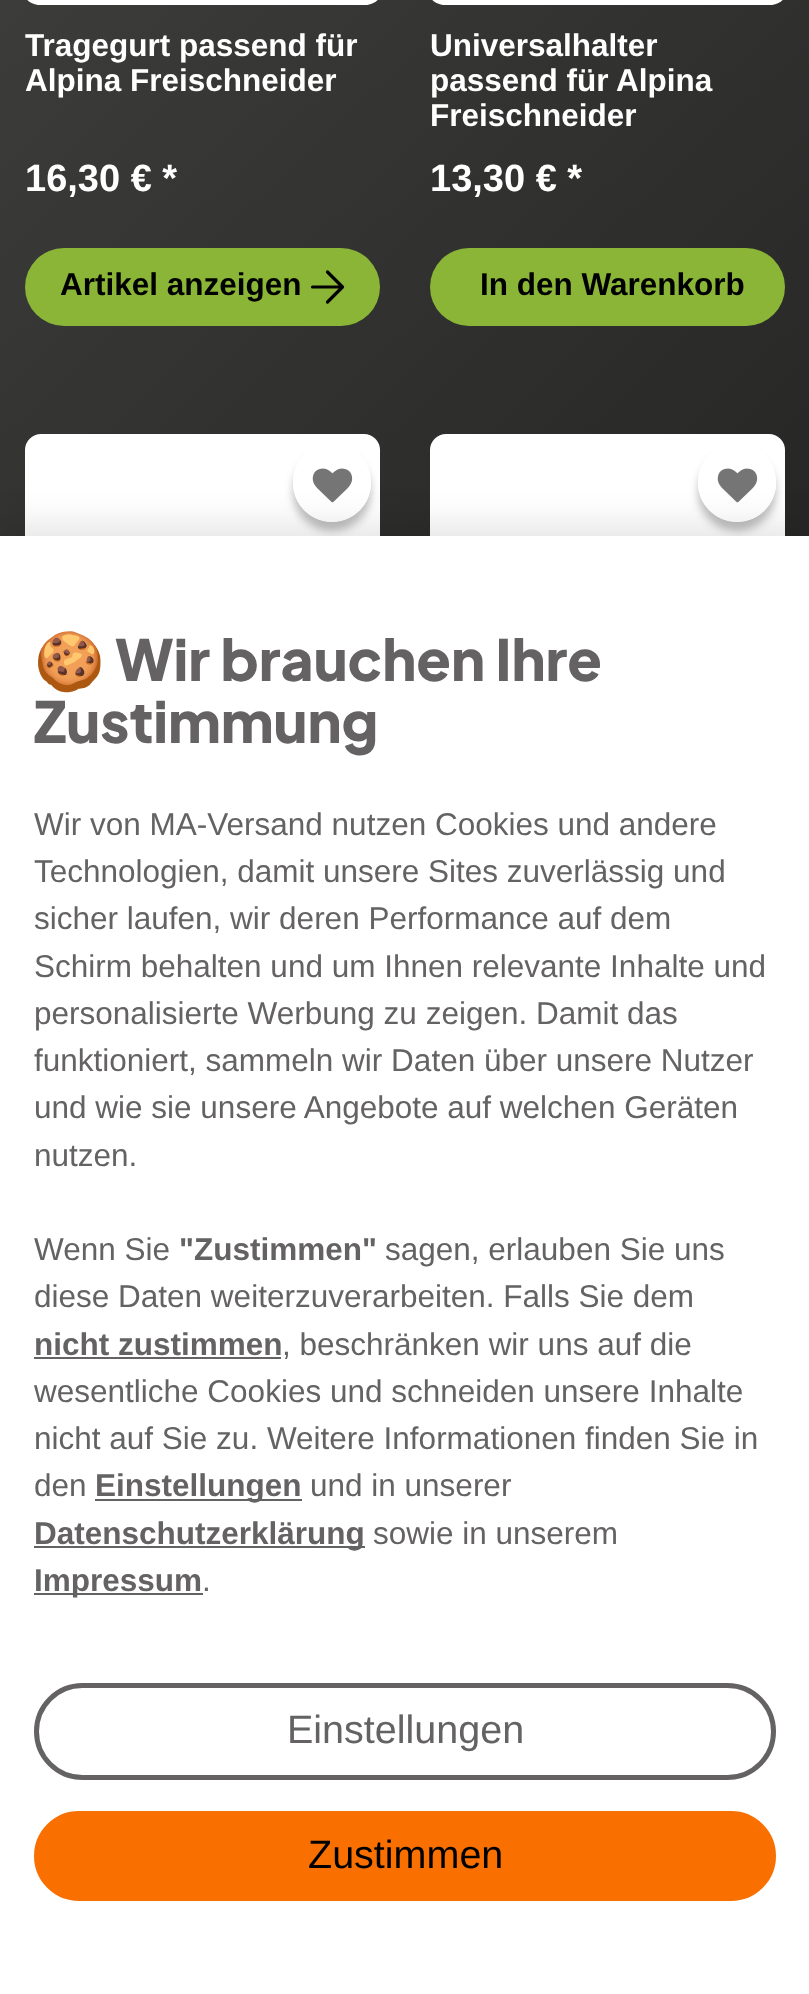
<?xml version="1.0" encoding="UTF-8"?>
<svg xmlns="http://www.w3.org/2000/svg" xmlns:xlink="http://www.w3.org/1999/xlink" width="809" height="1994">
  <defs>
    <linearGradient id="g1" gradientUnits="userSpaceOnUse" x1="-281" y1="262" x2="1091" y2="1734"><stop offset="0" stop-color="#3c3c3b" /><stop offset="1" stop-color="#0e0e0e" /></linearGradient>
    <clipPath id="clip1"><path d="M 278 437 h 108 v 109 h -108 z m 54 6 c 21.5 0 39 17.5 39 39 v 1 c 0 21.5 -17.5 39 -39 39 c -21.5 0 -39 -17.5 -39 -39 v -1 c 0 -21.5 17.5 -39 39 -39 z" clip-rule="evenodd" /></clipPath>
    <clipPath id="clip2"><path d="M 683 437 h 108 v 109 h -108 z m 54 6 c 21.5 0 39 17.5 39 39 v 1 c 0 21.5 -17.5 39 -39 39 c -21.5 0 -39 -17.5 -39 -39 v -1 c 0 -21.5 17.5 -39 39 -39 z" clip-rule="evenodd" /></clipPath>
  </defs>
  <rect width="100%" height="100%" fill="#ffffff" />
  <rect width="809" height="536" fill="url(#g1)" />
  <rect x="25" y="-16" width="355" height="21" rx="16" fill="#ffffff" />
  <rect x="25" y="248" width="355" height="78" rx="39" fill="#8ab536" />
  <path d="M 312.5 287 h 28 m -13 -15 l 15 15 l -15 15" fill="none" stroke="#000000" stroke-width="3.2" stroke-linecap="round" stroke-linejoin="round" />
  <rect x="430" y="-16" width="355" height="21" rx="16" fill="#ffffff" />
  <rect x="430" y="248" width="355" height="78" rx="39" fill="#8ab536" />
  <rect x="25" y="434" width="355" height="356" rx="16" fill="#ffffff" />
  <g clip-path="url(#clip1)">
    <rect x="293" y="452" width="78" height="79" rx="39" fill="#000000" fill-opacity="0.25" filter="blur(4.5px)" />
  </g>
  <rect x="293" y="443" width="78" height="79" rx="39" fill="#ffffff" fill-opacity="0.95" />
  <image x="312" y="468" width="41" height="35" xlink:href="image1.png" />
  <rect x="430" y="434" width="355" height="356" rx="16" fill="#ffffff" />
  <g clip-path="url(#clip2)">
    <rect x="698" y="452" width="78" height="79" rx="39" fill="#000000" fill-opacity="0.25" filter="blur(4.5px)" />
  </g>
  <rect x="698" y="443" width="78" height="79" rx="39" fill="#ffffff" fill-opacity="0.95" />
  <image x="717" y="468" width="41" height="35" xlink:href="image1.png" />
  <rect y="524" width="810" height="1461" fill="#000000" fill-opacity="0.1" filter="blur(17px)" />
  <rect y="536" width="809" height="1458" fill="#ffffff" />
  <rect x="34" y="1357" width="247" height="2" fill="#646263" />
  <rect x="95" y="1499" width="207" height="2" fill="#646263" />
  <rect x="34" y="1546" width="331" height="2" fill="#646263" />
  <rect x="34" y="1593" width="169" height="2" fill="#646263" />
  <rect x="36.5" y="1685.5" width="737" height="92" rx="46" fill="none" stroke="#646263" stroke-width="5" />
  <rect x="35" y="1812" width="740" height="88" rx="44" fill="#f97001" stroke="#f97001" stroke-width="2" />
  <text x="25" y="56" style="font-family: Liberation Sans; font-size: 31.5px; font-weight: bold; fill: #ffffff">Tragegurt passend für</text>
  <text x="25" y="91" style="font-family: Liberation Sans; font-size: 31.5px; font-weight: bold; fill: #ffffff">Alpina Freischneider</text>
  <text x="25" y="191" style="font-family: Liberation Sans; font-size: 38px; font-weight: bold; fill: #ffffff">16,30 € *</text>
  <text x="60" y="295" style="font-family: Liberation Sans; font-size: 31.5px; font-weight: bold; fill: #000000">Artikel anzeigen</text>
  <text x="430" y="56" style="font-family: Liberation Sans; font-size: 31.5px; font-weight: bold; fill: #ffffff">Universalhalter</text>
  <text x="430" y="91" style="font-family: Liberation Sans; font-size: 31.5px; font-weight: bold; fill: #ffffff">passend für Alpina</text>
  <text x="430" y="126" style="font-family: Liberation Sans; font-size: 31.5px; font-weight: bold; fill: #ffffff">Freischneider</text>
  <text x="430" y="191" style="font-family: Liberation Sans; font-size: 38px; font-weight: bold; fill: #ffffff">13,30 € *</text>
  <text x="480" y="295" style="font-family: Liberation Sans; font-size: 31.5px; font-weight: bold; fill: #000000">In den Warenkorb</text>
  <text x="34" y="681" style="font-family: Noto Color Emoji; font-size: 56.75px; font-weight: bold; fill: #646263">🍪</text>
  <text x="115" y="681" style="font-family: Plus Jakarta Sans; font-size: 56.75px; font-weight: 800; fill: #646263">Wir brauchen Ihre</text>
  <text x="34" y="743" style="font-family: Plus Jakarta Sans; font-size: 56.75px; font-weight: 800; fill: #646263">Zustimmung</text>
  <text x="34" y="835" style="font-family: Liberation Sans; font-size: 31.5px; fill: #646263">Wir von MA-Versand nutzen Cookies und andere</text>
  <text x="34" y="882" style="font-family: Liberation Sans; font-size: 31.5px; fill: #646263">Technologien, damit unsere Sites zuverlässig und</text>
  <text x="34" y="929" style="font-family: Liberation Sans; font-size: 31.5px; fill: #646263">sicher laufen, wir deren Performance auf dem</text>
  <text x="34" y="977" style="font-family: Liberation Sans; font-size: 31.5px; fill: #646263">Schirm behalten und um Ihnen relevante Inhalte und</text>
  <text x="34" y="1024" style="font-family: Liberation Sans; font-size: 31.5px; fill: #646263">personalisierte Werbung zu zeigen. Damit das</text>
  <text x="34" y="1071" style="font-family: Liberation Sans; font-size: 31.5px; fill: #646263">funktioniert, sammeln wir Daten über unsere Nutzer</text>
  <text x="34" y="1118" style="font-family: Liberation Sans; font-size: 31.5px; fill: #646263">und wie sie unsere Angebote auf welchen Geräten</text>
  <text x="34" y="1166" style="font-family: Liberation Sans; font-size: 31.5px; fill: #646263">nutzen.</text>
  <text x="34" y="1260" style="font-family: Liberation Sans; font-size: 31.5px; fill: #646263">Wenn Sie</text>
  <text x="179" y="1260" style="font-family: Liberation Sans; font-size: 31.5px; font-weight: bold; fill: #646263">"Zustimmen"</text>
  <text x="385" y="1260" style="font-family: Liberation Sans; font-size: 31.5px; fill: #646263">sagen, erlauben Sie uns</text>
  <text x="34" y="1307" style="font-family: Liberation Sans; font-size: 31.5px; fill: #646263">diese Daten weiterzuverarbeiten. Falls Sie dem</text>
  <text x="34" y="1355" style="font-family: Liberation Sans; font-size: 31.5px; font-weight: bold; fill: #646263">nicht zustimmen</text>
  <text x="282" y="1355" style="font-family: Liberation Sans; font-size: 31.5px; fill: #646263">, beschränken wir uns auf die</text>
  <text x="34" y="1402" style="font-family: Liberation Sans; font-size: 31.5px; fill: #646263">wesentliche Cookies und schneiden unsere Inhalte</text>
  <text x="34" y="1449" style="font-family: Liberation Sans; font-size: 31.5px; fill: #646263">nicht auf Sie zu. Weitere Informationen finden Sie in</text>
  <text x="34" y="1496" style="font-family: Liberation Sans; font-size: 31.5px; fill: #646263">den</text>
  <text x="95" y="1496" style="font-family: Liberation Sans; font-size: 31.5px; font-weight: bold; fill: #646263">Einstellungen</text>
  <text x="310" y="1496" style="font-family: Liberation Sans; font-size: 31.5px; fill: #646263">und in unserer</text>
  <text x="34" y="1544" style="font-family: Liberation Sans; font-size: 31.5px; font-weight: bold; fill: #646263">Datenschutzerklärung</text>
  <text x="373" y="1544" style="font-family: Liberation Sans; font-size: 31.5px; fill: #646263">sowie in unserem</text>
  <text x="34" y="1591" style="font-family: Liberation Sans; font-size: 31.5px; font-weight: bold; fill: #646263">Impressum</text>
  <text x="202" y="1591" style="font-family: Liberation Sans; font-size: 31.5px; fill: #646263">.</text>
  <text x="287" y="1743" style="font-family: Liberation Sans; font-size: 39.5px; fill: #646263">Einstellungen</text>
  <text x="308" y="1868" style="font-family: Liberation Sans; font-size: 39.5px; fill: #000000">Zustimmen</text>
</svg>
